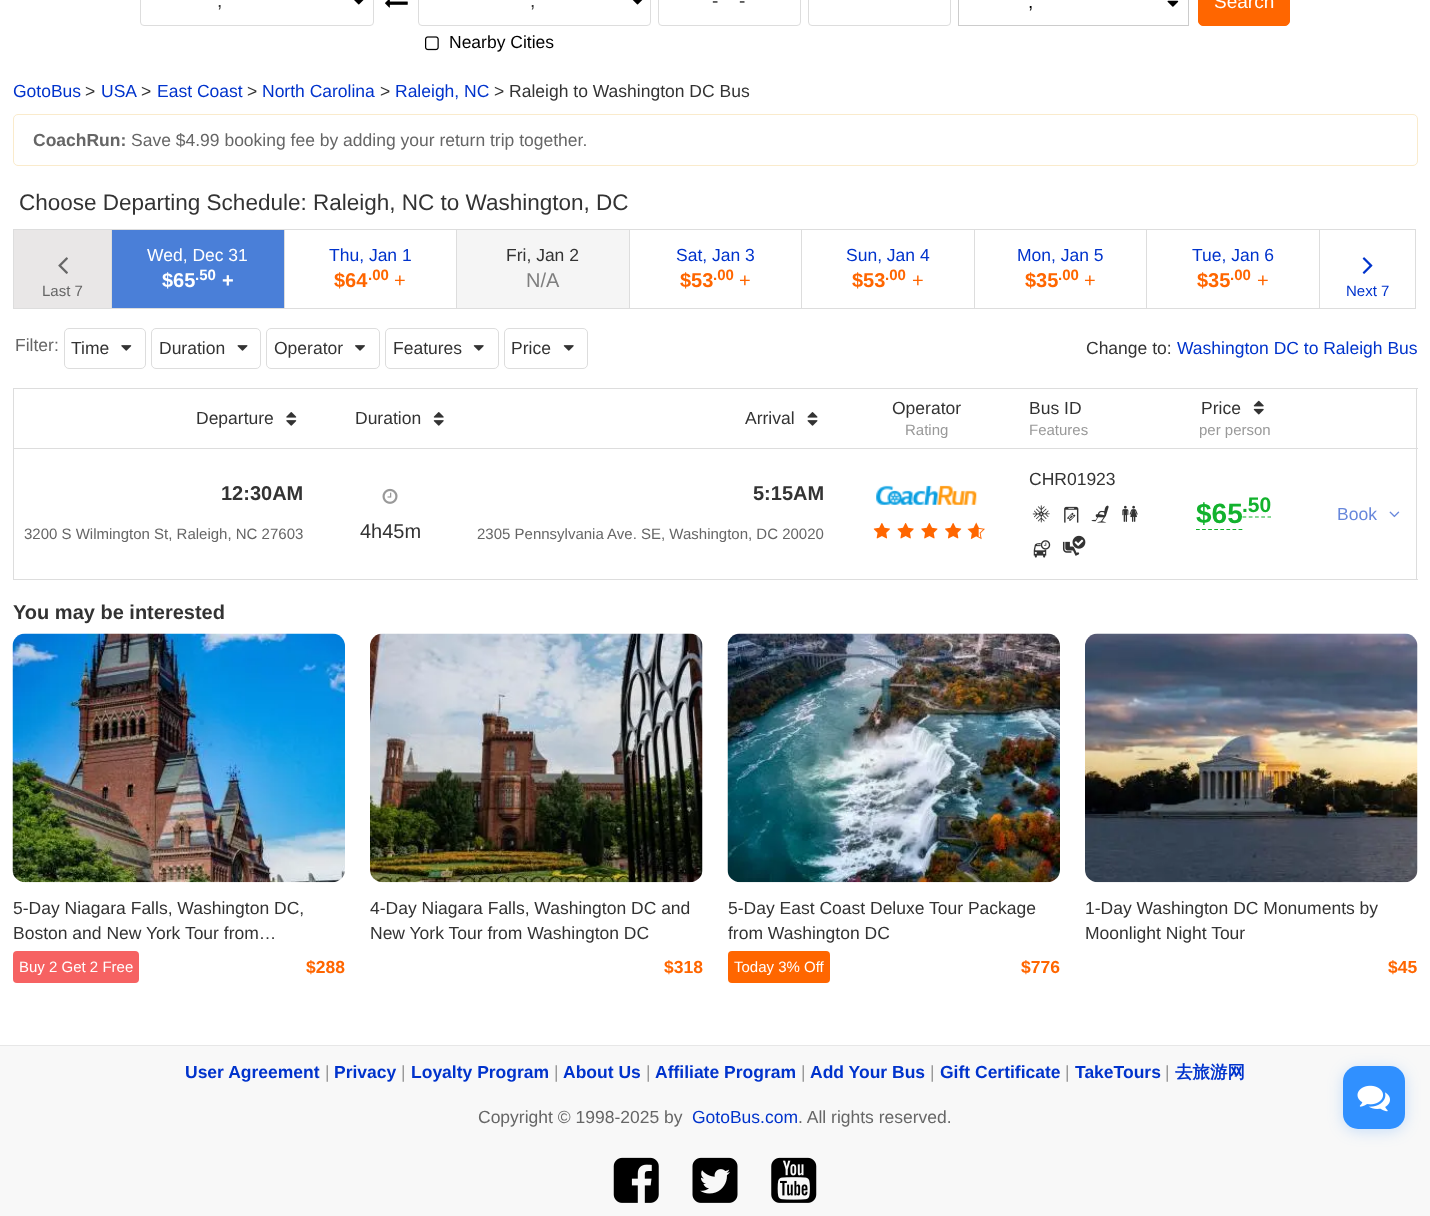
<?xml version="1.0" encoding="UTF-8"?>
<svg xmlns="http://www.w3.org/2000/svg" xmlns:xlink="http://www.w3.org/1999/xlink" width="1430" height="1216">
  <rect width="100%" height="100%" fill="#ffffff" />
  <rect x="140.5" y="-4.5" width="233" height="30" rx="3.5" fill="none" stroke="#dddddd" />
  <image x="354" y="0" width="10" height="5" xlink:href="image1.png" />
  <image x="385" y="0" width="23" height="8" xlink:href="image2.png" />
  <rect x="418.5" y="-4.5" width="232" height="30" rx="3.5" fill="none" stroke="#dddddd" />
  <image x="632" y="0" width="11" height="5" xlink:href="image3.png" />
  <image x="425" y="36" width="14" height="15" xlink:href="image4.png" />
  <rect x="658.5" y="-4.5" width="142" height="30" rx="3.5" fill="none" stroke="#dddddd" />
  <rect x="808.5" y="-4.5" width="142" height="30" rx="3.5" fill="none" stroke="#dddddd" />
  <rect x="958.5" y="-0.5" width="230" height="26" fill="none" stroke="#cccccc" />
  <image x="1167" y="0" width="12" height="7" xlink:href="image5.png" />
  <rect x="1198.5" y="-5.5" width="91" height="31" rx="4.5" fill="#ff6600" stroke="#ff6600" />
  <rect x="13.5" y="114.5" width="1404" height="51" rx="4.5" fill="none" stroke="#faebcc" />
  <rect x="112" y="230" width="172" height="78" fill="#4a7fd8" />
  <rect x="13" y="229" width="443" height="1" fill="#dddddd" />
  <rect x="13" y="308" width="443" height="1" fill="#dddddd" />
  <rect x="111" y="229" width="1" height="80" fill="#dddddd" />
  <rect x="284" y="229" width="1" height="80" fill="#dddddd" />
  <rect x="457" y="230" width="172" height="78" fill="#f5f5f5" />
  <rect x="456" y="229" width="863" height="1" fill="#dddddd" />
  <rect x="456" y="308" width="863" height="1" fill="#dddddd" />
  <rect x="456" y="229" width="1" height="80" fill="#dddddd" />
  <rect x="629" y="229" width="1" height="80" fill="#dddddd" />
  <rect x="801" y="229" width="1" height="80" fill="#dddddd" />
  <rect x="974" y="229" width="1" height="80" fill="#dddddd" />
  <rect x="1146" y="229" width="1" height="80" fill="#dddddd" />
  <rect x="14" y="230" width="97" height="78" fill="#e9e7e7" />
  <rect x="13" y="229" width="1" height="80" fill="#dddddd" />
  <image x="58" y="257" width="10" height="17" xlink:href="image6.png" />
  <rect x="1319.5" y="229.5" width="96" height="79" fill="none" stroke="#dddddd" />
  <image x="1362" y="257" width="11" height="17" xlink:href="image7.png" />
  <rect x="64.5" y="328.5" width="81" height="40" rx="4.5" fill="none" stroke="#dddddd" />
  <image x="121" y="345" width="11" height="6" xlink:href="image8.png" />
  <rect x="151.5" y="328.5" width="109" height="40" rx="4.5" fill="none" stroke="#dddddd" />
  <image x="237" y="345" width="11" height="6" xlink:href="image9.png" />
  <rect x="266.5" y="328.5" width="113" height="40" rx="4.5" fill="none" stroke="#dddddd" />
  <image x="355" y="345" width="10" height="6" xlink:href="image10.png" />
  <rect x="385.5" y="328.5" width="113" height="40" rx="4.5" fill="none" stroke="#dddddd" />
  <image x="473" y="345" width="11" height="6" xlink:href="image11.png" />
  <rect x="504.5" y="328.5" width="83" height="40" rx="4.5" fill="none" stroke="#dddddd" />
  <image x="563" y="345" width="11" height="6" xlink:href="image11.png" />
  <rect x="1416" y="388" width="1" height="192" fill="#dddddd" />
  <rect x="13" y="579" width="1405" height="1" fill="#dddddd" />
  <rect x="13" y="388" width="1" height="192" fill="#dddddd" />
  <rect x="14" y="388" width="1404" height="1" fill="#dddddd" />
  <image x="286" y="412" width="11" height="14" xlink:href="image12.png" />
  <image x="433" y="412" width="11" height="14" xlink:href="image13.png" />
  <image x="807" y="412" width="11" height="14" xlink:href="image14.png" />
  <image x="1253" y="400" width="11" height="15" xlink:href="image15.png" />
  <image x="1032" y="505" width="18" height="18" xlink:href="image16.png" />
  <image x="1064" y="506" width="15" height="17" xlink:href="image17.png" />
  <image x="1091" y="505" width="18" height="18" xlink:href="image18.png" />
  <image x="1122" y="505" width="16" height="17" xlink:href="image19.png" />
  <image x="1033" y="540" width="18" height="18" xlink:href="image20.png" />
  <image x="1062" y="541" width="18" height="15" xlink:href="image22.png" />
  <image x="1072" y="535" width="14" height="14" xlink:href="image21.png" />
  <image x="876" y="485" width="101" height="20" xlink:href="image23.png" />
  <image x="873" y="523" width="17" height="16" xlink:href="image24.png" />
  <image x="897" y="523" width="17" height="16" xlink:href="image25.png" />
  <image x="921" y="523" width="17" height="16" xlink:href="image26.png" />
  <image x="945" y="523" width="17" height="16" xlink:href="image27.png" />
  <image x="967" y="522" width="18" height="18" xlink:href="image28.png" />
  <path d="M 1196 529.5 h 46.5" fill="none" stroke="#12b22d" stroke-width="1.2" stroke-dasharray="3.75 2.33" />
  <path d="M 1242.5 517 h 28.5" fill="none" stroke="#12b22d" stroke-width="1.2" stroke-dasharray="3.75 2.5" />
  <rect x="14" y="448" width="1404" height="1" fill="#dddddd" />
  <image x="1389" y="511" width="11" height="7" xlink:href="image29.png" />
  <image x="382" y="488" width="16" height="16" xlink:href="image30.png" />
  <image x="12" y="633" width="333" height="250" xlink:href="image31.png" />
  <rect x="13" y="951" width="126" height="32" rx="4" fill="#f66262" />
  <image x="370" y="633" width="333" height="250" xlink:href="image32.png" />
  <image x="727" y="633" width="333" height="250" xlink:href="image33.png" />
  <rect x="728" y="951" width="102" height="32" rx="4" fill="#ff6600" />
  <image x="1085" y="633" width="333" height="250" xlink:href="image34.png" />
  <rect y="1046" width="1430" height="170" fill="#f8f8f8" />
  <rect y="1045" width="1430" height="1" fill="#e7e7e7" />
  <image x="613" y="1157" width="46" height="46" xlink:href="image35.png" />
  <image x="692" y="1157" width="46" height="46" xlink:href="image36.png" />
  <image x="771" y="1157" width="46" height="46" xlink:href="image37.png" />
  <rect x="1343" y="1069" width="62" height="62" rx="15" fill="#3090ff" fill-opacity="0.25" filter="blur(7.5px)" />
  <rect x="1343" y="1066" width="62" height="63" rx="15" fill="#3090ff" />
  <image x="1357" y="1085" width="33" height="27" xlink:href="image38.png" />
  <text x="217" y="7" style="font-family: Liberation Sans; font-size: 19px; fill: #333333">,</text>
  <text x="530" y="7" style="font-family: Liberation Sans; font-size: 19px; fill: #333333">,</text>
  <text x="449" y="48" style="font-family: Liberation Sans; font-size: 17.5px; fill: #000000">Nearby Cities</text>
  <text x="712" y="7" style="font-family: Liberation Sans; font-size: 19px; fill: #333333">-</text>
  <text x="739" y="7" style="font-family: Liberation Sans; font-size: 19px; fill: #333333">-</text>
  <text x="1028" y="8" style="font-family: Liberation Sans; font-size: 19px; fill: #000000">,</text>
  <text x="1214" y="8" style="font-family: Liberation Sans; font-size: 19px; fill: #ffffff">Search</text>
  <text x="13" y="97" style="font-family: Liberation Sans; font-size: 17.5px; fill: #0033cc">GotoBus</text>
  <text x="85" y="97" style="font-family: Liberation Sans; font-size: 17.5px; fill: #333333">&gt;</text>
  <text x="101" y="97" style="font-family: Liberation Sans; font-size: 17.5px; fill: #0033cc">USA</text>
  <text x="141" y="97" style="font-family: Liberation Sans; font-size: 17.5px; fill: #333333">&gt;</text>
  <text x="157" y="97" style="font-family: Liberation Sans; font-size: 17.5px; fill: #0033cc">East Coast</text>
  <text x="247" y="97" style="font-family: Liberation Sans; font-size: 17.5px; fill: #333333">&gt;</text>
  <text x="262" y="97" style="font-family: Liberation Sans; font-size: 17.5px; fill: #0033cc">North Carolina</text>
  <text x="380" y="97" style="font-family: Liberation Sans; font-size: 17.5px; fill: #333333">&gt;</text>
  <text x="395" y="97" style="font-family: Liberation Sans; font-size: 17.5px; fill: #0033cc">Raleigh, NC</text>
  <text x="494" y="97" style="font-family: Liberation Sans; font-size: 17.5px; fill: #333333">&gt; Raleigh to Washington DC Bus</text>
  <text x="33" y="146" style="font-family: Liberation Sans; font-size: 17.5px; font-weight: bold; fill: #666666">CoachRun:</text>
  <text x="131" y="146" style="font-family: Liberation Sans; font-size: 17.5px; fill: #666666">Save $4.99 booking fee by adding your return trip together.</text>
  <text x="19" y="210" style="font-family: Liberation Sans; font-size: 22.5px; fill: #333333">Choose Departing Schedule: Raleigh, NC to Washington, DC</text>
  <text x="147" y="261" style="font-family: Liberation Sans; font-size: 17.5px; fill: #ffffff">Wed, Dec 31</text>
  <text x="162" y="287" style="font-family: Liberation Sans; font-size: 20px; font-weight: bold; fill: #ffffff">$65</text>
  <text x="195" y="280" style="font-family: Liberation Sans; font-size: 15px; font-weight: bold; fill: #ffffff">.50</text>
  <text x="222" y="287" style="font-family: Liberation Sans; font-size: 20px; font-weight: bold; fill: #ffffff">+</text>
  <text x="329" y="261" style="font-family: Liberation Sans; font-size: 17.5px; fill: #0033cc">Thu, Jan 1</text>
  <text x="334" y="287" style="font-family: Liberation Sans; font-size: 20px; font-weight: bold; fill: #ff6600">$64</text>
  <text x="368" y="280" style="font-family: Liberation Sans; font-size: 15px; font-weight: bold; fill: #ff6600">.00</text>
  <text x="394" y="287" style="font-family: Liberation Sans; font-size: 20px; fill: #ff6600">+</text>
  <text x="506" y="261" style="font-family: Liberation Sans; font-size: 17.5px; fill: #333333">Fri, Jan 2</text>
  <text x="526" y="287" style="font-family: Liberation Sans; font-size: 20px; fill: #7f7f7f">N/A</text>
  <text x="676" y="261" style="font-family: Liberation Sans; font-size: 17.5px; fill: #0033cc">Sat, Jan 3</text>
  <text x="680" y="287" style="font-family: Liberation Sans; font-size: 20px; font-weight: bold; fill: #ff6600">$53</text>
  <text x="713" y="280" style="font-family: Liberation Sans; font-size: 15px; font-weight: bold; fill: #ff6600">.00</text>
  <text x="739" y="287" style="font-family: Liberation Sans; font-size: 20px; fill: #ff6600">+</text>
  <text x="846" y="261" style="font-family: Liberation Sans; font-size: 17.5px; fill: #0033cc">Sun, Jan 4</text>
  <text x="852" y="287" style="font-family: Liberation Sans; font-size: 20px; font-weight: bold; fill: #ff6600">$53</text>
  <text x="885" y="280" style="font-family: Liberation Sans; font-size: 15px; font-weight: bold; fill: #ff6600">.00</text>
  <text x="912" y="287" style="font-family: Liberation Sans; font-size: 20px; fill: #ff6600">+</text>
  <text x="1017" y="261" style="font-family: Liberation Sans; font-size: 17.5px; fill: #0033cc">Mon, Jan 5</text>
  <text x="1025" y="287" style="font-family: Liberation Sans; font-size: 20px; font-weight: bold; fill: #ff6600">$35</text>
  <text x="1058" y="280" style="font-family: Liberation Sans; font-size: 15px; font-weight: bold; fill: #ff6600">.00</text>
  <text x="1084" y="287" style="font-family: Liberation Sans; font-size: 20px; fill: #ff6600">+</text>
  <text x="1192" y="261" style="font-family: Liberation Sans; font-size: 17.5px; fill: #0033cc">Tue, Jan 6</text>
  <text x="1197" y="287" style="font-family: Liberation Sans; font-size: 20px; font-weight: bold; fill: #ff6600">$35</text>
  <text x="1230" y="280" style="font-family: Liberation Sans; font-size: 15px; font-weight: bold; fill: #ff6600">.00</text>
  <text x="1257" y="287" style="font-family: Liberation Sans; font-size: 20px; fill: #ff6600">+</text>
  <text x="42" y="296" style="font-family: Liberation Sans; font-size: 15px; fill: #666666">Last 7</text>
  <text x="1346" y="296" style="font-family: Liberation Sans; font-size: 15px; fill: #0033cc">Next 7</text>
  <text x="15" y="351" style="font-family: Liberation Sans; font-size: 17.5px; fill: #666666">Filter:</text>
  <text x="71" y="354" style="font-family: Liberation Sans; font-size: 17.5px; fill: #333333">Time</text>
  <text x="159" y="354" style="font-family: Liberation Sans; font-size: 17.5px; fill: #333333">Duration</text>
  <text x="274" y="354" style="font-family: Liberation Sans; font-size: 17.5px; fill: #333333">Operator</text>
  <text x="393" y="354" style="font-family: Liberation Sans; font-size: 17.5px; fill: #333333">Features</text>
  <text x="511" y="354" style="font-family: Liberation Sans; font-size: 17.5px; fill: #333333">Price</text>
  <text x="1086" y="354" style="font-family: Liberation Sans; font-size: 17.5px; fill: #333333">Change to:</text>
  <text x="1177" y="354" style="font-family: Liberation Sans; font-size: 17.5px; fill: #0033cc">Washington DC to Raleigh Bus</text>
  <text x="196" y="424" style="font-family: Liberation Sans; font-size: 17.5px; fill: #333333">Departure</text>
  <text x="355" y="424" style="font-family: Liberation Sans; font-size: 17.5px; fill: #333333">Duration</text>
  <text x="745" y="424" style="font-family: Liberation Sans; font-size: 17.5px; fill: #333333">Arrival</text>
  <text x="892" y="414" style="font-family: Liberation Sans; font-size: 17.5px; fill: #333333">Operator</text>
  <text x="905" y="435" style="font-family: Liberation Sans; font-size: 15px; fill: #999999">Rating</text>
  <text x="1029" y="414" style="font-family: Liberation Sans; font-size: 17.5px; fill: #333333">Bus ID</text>
  <text x="1029" y="435" style="font-family: Liberation Sans; font-size: 15px; fill: #999999">Features</text>
  <text x="1201" y="414" style="font-family: Liberation Sans; font-size: 17.5px; fill: #333333">Price</text>
  <text x="1199" y="435" style="font-family: Liberation Sans; font-size: 15px; fill: #999999">per person</text>
  <text x="1029" y="485" style="font-family: Liberation Sans; font-size: 17.5px; fill: #333333">CHR01923</text>
  <text x="221" y="500" style="font-family: Liberation Sans; font-size: 20px; font-weight: bold; fill: #333333">12:30AM</text>
  <text x="24" y="539" style="font-family: Liberation Sans; font-size: 15px; fill: #666666">3200 S Wilmington St, Raleigh, NC 27603</text>
  <text x="753" y="500" style="font-family: Liberation Sans; font-size: 20px; font-weight: bold; fill: #333333">5:15AM</text>
  <text x="477" y="539" style="font-family: Liberation Sans; font-size: 15px; fill: #666666">2305 Pennsylvania Ave. SE, Washington, DC 20020</text>
  <text x="1196" y="523" style="font-family: Liberation Sans; font-size: 28px; font-weight: bold; fill: #12b22d">$65</text>
  <text x="1242" y="512" style="font-family: Liberation Sans; font-size: 21px; font-weight: bold; fill: #12b22d">.50</text>
  <text x="1337" y="520" style="font-family: Liberation Sans; font-size: 17.5px; fill: #6787db">Book</text>
  <text x="360" y="538" style="font-family: Liberation Sans; font-size: 20px; fill: #333333">4h45m</text>
  <text x="13" y="619" style="font-family: Liberation Sans; font-size: 20px; font-weight: bold; fill: #333333">You may be interested</text>
  <text x="13" y="914" style="font-family: Liberation Sans; font-size: 17.5px; fill: #333333">5-Day Niagara Falls, Washington DC,</text>
  <text x="13" y="939" style="font-family: Liberation Sans; font-size: 17.5px; fill: #333333">Boston and New York Tour from…</text>
  <text x="19" y="972" style="font-family: Liberation Sans; font-size: 15px; fill: #ffffff">Buy 2 Get 2 Free</text>
  <text x="306" y="973" style="font-family: Liberation Sans; font-size: 17.5px; font-weight: bold; fill: #ff6600">$288</text>
  <text x="370" y="914" style="font-family: Liberation Sans; font-size: 17.5px; fill: #333333">4-Day Niagara Falls, Washington DC and</text>
  <text x="370" y="939" style="font-family: Liberation Sans; font-size: 17.5px; fill: #333333">New York Tour from Washington DC</text>
  <text x="664" y="973" style="font-family: Liberation Sans; font-size: 17.5px; font-weight: bold; fill: #ff6600">$318</text>
  <text x="728" y="914" style="font-family: Liberation Sans; font-size: 17.5px; fill: #333333">5-Day East Coast Deluxe Tour Package</text>
  <text x="728" y="939" style="font-family: Liberation Sans; font-size: 17.5px; fill: #333333">from Washington DC</text>
  <text x="734" y="972" style="font-family: Liberation Sans; font-size: 15px; fill: #ffffff">Today 3% Off</text>
  <text x="1021" y="973" style="font-family: Liberation Sans; font-size: 17.5px; font-weight: bold; fill: #ff6600">$776</text>
  <text x="1085" y="914" style="font-family: Liberation Sans; font-size: 17.5px; fill: #333333">1-Day Washington DC Monuments by</text>
  <text x="1085" y="939" style="font-family: Liberation Sans; font-size: 17.5px; fill: #333333">Moonlight Night Tour</text>
  <text x="1388" y="973" style="font-family: Liberation Sans; font-size: 17.5px; font-weight: bold; fill: #ff6600">$45</text>
  <text x="185" y="1078" style="font-family: Liberation Sans; font-size: 17.5px; font-weight: bold; fill: #0033cc">User Agreement</text>
  <text x="325" y="1078" style="font-family: Liberation Sans; font-size: 17.5px; fill: #999999">|</text>
  <text x="334" y="1078" style="font-family: Liberation Sans; font-size: 17.5px; font-weight: bold; fill: #0033cc">Privacy</text>
  <text x="401" y="1078" style="font-family: Liberation Sans; font-size: 17.5px; fill: #999999">|</text>
  <text x="411" y="1078" style="font-family: Liberation Sans; font-size: 17.5px; font-weight: bold; fill: #0033cc">Loyalty Program</text>
  <text x="554" y="1078" style="font-family: Liberation Sans; font-size: 17.5px; fill: #999999">|</text>
  <text x="563" y="1078" style="font-family: Liberation Sans; font-size: 17.5px; font-weight: bold; fill: #0033cc">About Us</text>
  <text x="646" y="1078" style="font-family: Liberation Sans; font-size: 17.5px; fill: #999999">|</text>
  <text x="655" y="1078" style="font-family: Liberation Sans; font-size: 17.5px; font-weight: bold; fill: #0033cc">Affiliate Program</text>
  <text x="801" y="1078" style="font-family: Liberation Sans; font-size: 17.5px; fill: #999999">|</text>
  <text x="810" y="1078" style="font-family: Liberation Sans; font-size: 17.5px; font-weight: bold; fill: #0033cc">Add Your Bus</text>
  <text x="930" y="1078" style="font-family: Liberation Sans; font-size: 17.5px; fill: #999999">|</text>
  <text x="940" y="1078" style="font-family: Liberation Sans; font-size: 17.5px; font-weight: bold; fill: #0033cc">Gift Certificate</text>
  <text x="1065" y="1078" style="font-family: Liberation Sans; font-size: 17.5px; fill: #999999">|</text>
  <text x="1075" y="1078" style="font-family: Liberation Sans; font-size: 17.5px; font-weight: bold; fill: #0033cc">TakeTours</text>
  <text x="1165" y="1078" style="font-family: Liberation Sans; font-size: 17.5px; fill: #999999">|</text>
  <text x="1175" y="1078" style="font-family: WenQuanYi Zen Hei; font-size: 17.5px; font-weight: bold; fill: #0033cc">去旅游网</text>
  <text x="478" y="1123" style="font-family: Liberation Sans; font-size: 17.5px; fill: #666666">Copyright © 1998-2025 by</text>
  <text x="692" y="1123" style="font-family: Liberation Sans; font-size: 17.5px; fill: #0033cc">GotoBus.com</text>
  <text x="798" y="1123" style="font-family: Liberation Sans; font-size: 17.5px; fill: #666666">. All rights reserved.</text>
</svg>
